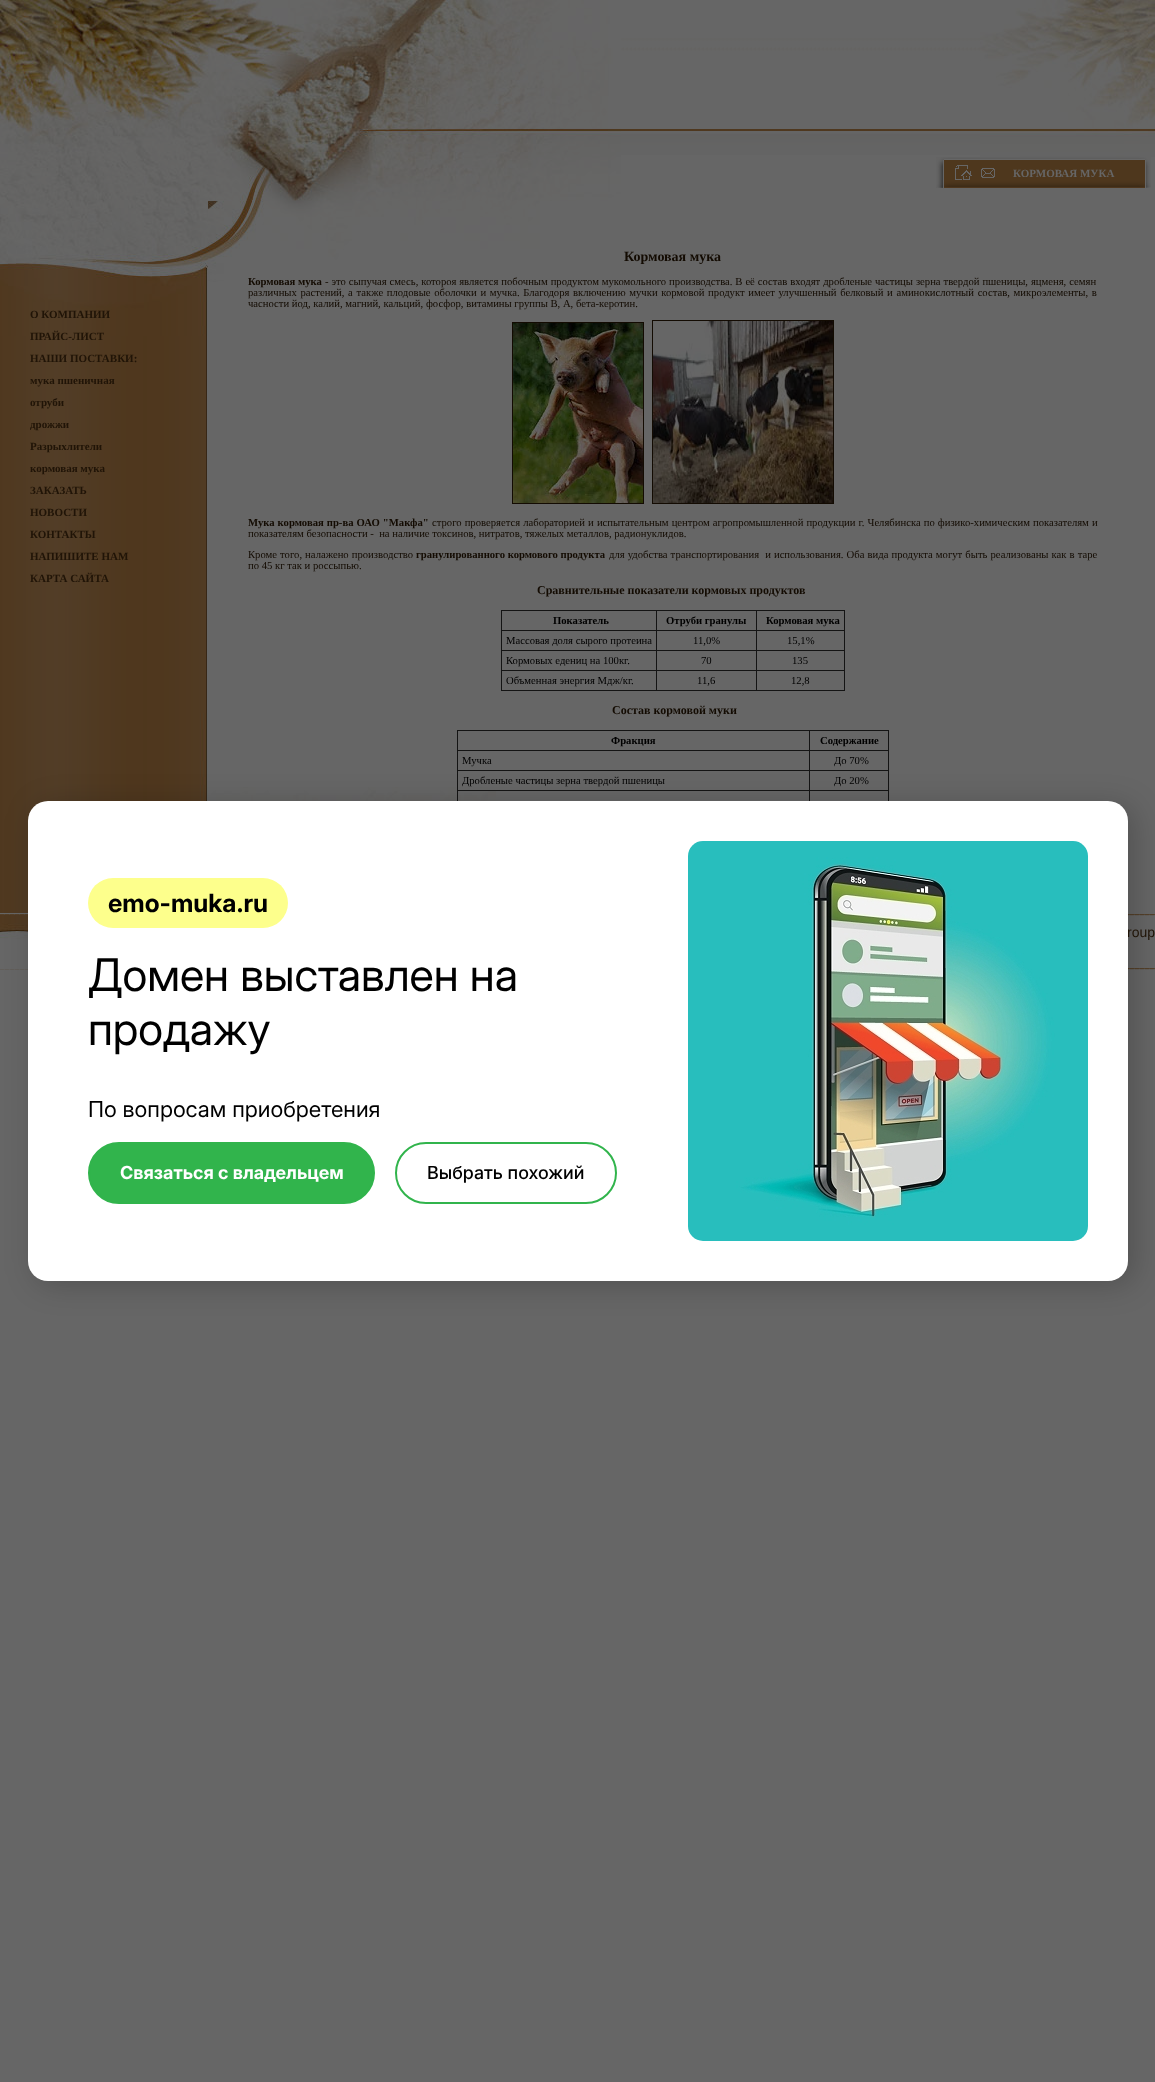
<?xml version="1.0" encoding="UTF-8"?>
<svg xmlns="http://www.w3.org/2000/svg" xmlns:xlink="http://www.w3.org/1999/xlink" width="1155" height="2082">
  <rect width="100%" height="100%" fill="#666666" />
  <image x="0" y="336" width="207" height="355" xlink:href="image1.png" />
  <image x="0" y="0" width="208" height="214" xlink:href="image2.png" />
  <image x="0" y="214" width="208" height="122" xlink:href="image3.png" />
  <image x="210" y="787" width="286" height="14" xlink:href="image4.png" />
  <image x="621" y="38" width="359" height="117" xlink:href="image5.png" />
  <image x="208" y="0" width="413" height="201" xlink:href="image6.png" />
  <image x="980" y="0" width="175" height="157" xlink:href="image7.png" />
  <image x="936" y="157" width="17" height="31" xlink:href="image8.png" />
  <image x="953" y="157" width="25" height="31" xlink:href="image9.png" />
  <image x="955" y="165" width="17" height="15" xlink:href="image10.png" />
  <image x="978" y="157" width="25" height="31" xlink:href="image9.png" />
  <image x="981" y="168" width="14" height="10" xlink:href="image11.png" />
  <image x="1003" y="157" width="121" height="31" xlink:href="image12.png" />
  <image x="1124" y="157" width="27" height="31" xlink:href="image13.png" />
  <image x="208" y="201" width="332" height="81" xlink:href="image14.png" />
  <rect x="652.5" y="320.5" width="181" height="183" fill="none" stroke="#130b02" />
  <rect x="512.5" y="322.5" width="131" height="181" fill="none" stroke="#130b02" />
  <image x="653" y="321" width="180" height="182" xlink:href="image15.png" />
  <image x="513" y="323" width="130" height="180" xlink:href="image16.png" />
  <rect x="756" y="610" width="89" height="1" fill="#141414" />
  <rect x="756" y="630" width="89" height="1" fill="#141414" />
  <rect x="756" y="650" width="89" height="1" fill="#141414" />
  <rect x="756" y="670" width="89" height="1" fill="#141414" />
  <rect x="844" y="670" width="1" height="21" fill="#141414" />
  <rect x="756" y="690" width="89" height="1" fill="#141414" />
  <rect x="756" y="670" width="1" height="21" fill="#141414" />
  <rect x="656" y="670" width="101" height="1" fill="#141414" />
  <rect x="756" y="650" width="1" height="21" fill="#141414" />
  <rect x="656" y="650" width="101" height="1" fill="#141414" />
  <rect x="756" y="630" width="1" height="21" fill="#141414" />
  <rect x="656" y="630" width="101" height="1" fill="#141414" />
  <rect x="756" y="610" width="1" height="21" fill="#141414" />
  <rect x="656" y="610" width="101" height="1" fill="#141414" />
  <rect x="656" y="690" width="101" height="1" fill="#141414" />
  <rect x="656" y="670" width="1" height="21" fill="#141414" />
  <rect x="501" y="670" width="156" height="1" fill="#141414" />
  <rect x="656" y="650" width="1" height="21" fill="#141414" />
  <rect x="501" y="650" width="156" height="1" fill="#141414" />
  <rect x="656" y="630" width="1" height="21" fill="#141414" />
  <rect x="501" y="630" width="156" height="1" fill="#141414" />
  <rect x="656" y="610" width="1" height="21" fill="#141414" />
  <rect x="501" y="610" width="156" height="1" fill="#141414" />
  <rect x="501" y="690" width="156" height="1" fill="#141414" />
  <rect x="501" y="670" width="1" height="21" fill="#141414" />
  <rect x="501" y="650" width="1" height="21" fill="#141414" />
  <rect x="501" y="630" width="1" height="21" fill="#141414" />
  <rect x="501" y="610" width="1" height="21" fill="#141414" />
  <rect x="844" y="650" width="1" height="21" fill="#141414" />
  <rect x="844" y="630" width="1" height="21" fill="#141414" />
  <rect x="844" y="610" width="1" height="21" fill="#141414" />
  <rect x="809" y="730" width="80" height="1" fill="#141414" />
  <rect x="809" y="750" width="80" height="1" fill="#141414" />
  <rect x="809" y="770" width="80" height="1" fill="#141414" />
  <rect x="809" y="790" width="80" height="1" fill="#141414" />
  <rect x="809" y="790" width="1" height="11" fill="#141414" />
  <rect x="457" y="790" width="353" height="1" fill="#141414" />
  <rect x="809" y="770" width="1" height="21" fill="#141414" />
  <rect x="457" y="770" width="353" height="1" fill="#141414" />
  <rect x="809" y="750" width="1" height="21" fill="#141414" />
  <rect x="457" y="750" width="353" height="1" fill="#141414" />
  <rect x="809" y="730" width="1" height="21" fill="#141414" />
  <rect x="457" y="730" width="353" height="1" fill="#141414" />
  <rect x="457" y="790" width="1" height="11" fill="#141414" />
  <rect x="457" y="770" width="1" height="21" fill="#141414" />
  <rect x="457" y="750" width="1" height="21" fill="#141414" />
  <rect x="457" y="730" width="1" height="21" fill="#141414" />
  <rect x="888" y="790" width="1" height="11" fill="#141414" />
  <rect x="888" y="770" width="1" height="21" fill="#141414" />
  <rect x="888" y="750" width="1" height="21" fill="#141414" />
  <rect x="888" y="730" width="1" height="21" fill="#141414" />
  <image x="0" y="691" width="207" height="222" xlink:href="image17.png" />
  <image x="200" y="713" width="8" height="88" xlink:href="image18.png" />
  <image x="0" y="914" width="1155" height="56" xlink:href="image20.png" />
  <image x="0" y="915" width="28" height="54" xlink:href="image21.png" />
  <rect x="35" y="805" width="1100" height="480" rx="20" fill="#000000" fill-opacity="0.2" filter="blur(15px)" />
  <text x="30" y="318" style="font-family: Liberation Serif; font-size: 11px; font-weight: bold; fill: #201407">О КОМПАНИИ</text>
  <text x="30" y="340" style="font-family: Liberation Serif; font-size: 11px; font-weight: bold; fill: #201407">ПРАЙС-ЛИСТ</text>
  <text x="30" y="362" style="font-family: Liberation Serif; font-size: 11px; font-weight: bold; fill: #201407">НАШИ ПОСТАВКИ:</text>
  <text x="30" y="384" style="font-family: Liberation Serif; font-size: 11px; font-weight: bold; fill: #201407">мука пшеничная</text>
  <text x="30" y="406" style="font-family: Liberation Serif; font-size: 11px; font-weight: bold; fill: #201407">отруби</text>
  <text x="30" y="428" style="font-family: Liberation Serif; font-size: 11px; font-weight: bold; fill: #201407">дрожжи</text>
  <text x="30" y="450" style="font-family: Liberation Serif; font-size: 11px; font-weight: bold; fill: #201407">Разрыхлители</text>
  <text x="30" y="472" style="font-family: Liberation Serif; font-size: 11px; font-weight: bold; fill: #201407">кормовая мука</text>
  <text x="30" y="494" style="font-family: Liberation Serif; font-size: 11px; font-weight: bold; fill: #201407">ЗАКАЗАТЬ</text>
  <text x="30" y="516" style="font-family: Liberation Serif; font-size: 11px; font-weight: bold; fill: #201407">НОВОСТИ</text>
  <text x="30" y="538" style="font-family: Liberation Serif; font-size: 11px; font-weight: bold; fill: #201407">КОНТАКТЫ</text>
  <text x="30" y="560" style="font-family: Liberation Serif; font-size: 11px; font-weight: bold; fill: #201407">НАПИШИТЕ НАМ</text>
  <text x="30" y="582" style="font-family: Liberation Serif; font-size: 11px; font-weight: bold; fill: #201407">КАРТА САЙТА</text>
  <text x="1013" y="177" style="font-family: Liberation Serif; font-size: 11px; font-weight: bold; fill: #666666">КОРМОВАЯ МУКА</text>
  <text x="624" y="261" style="font-family: Liberation Serif; font-size: 14px; font-weight: bold; fill: #130b02">Кормовая мука</text>
  <text x="248" y="285" style="font-family: Liberation Serif; font-size: 10.67px; font-weight: bold; fill: #130b02">Кормовая мука</text>
  <text x="325" y="285" word-spacing="0.25" style="font-family: Liberation Serif; font-size: 10.67px; fill: #130b02">- это сыпучая смесь, котороя является побочным продуктом мукомольного производства. В её состав входят дробленые частицы зерна твердой пшеницы, яцменя, семян</text>
  <text x="248" y="296" word-spacing="1" style="font-family: Liberation Serif; font-size: 10.67px; fill: #130b02">различных растений, а также плодовые оболочки и мучка. Благодоря включению мучки кормовой продукт имеет улучшенный белковый и аминокислотный состав, микроэлементы, в</text>
  <text x="248" y="307" style="font-family: Liberation Serif; font-size: 10.67px; fill: #130b02">часности йод, калий, магний, кальций, фосфор, витамины группы В, А, бета-керотин.</text>
  <text x="248" y="526" word-spacing="0.4" style="font-family: Liberation Serif; font-size: 10.67px; font-weight: bold; fill: #130b02">Мука кормовая пр-ва ОАО "Макфа"</text>
  <text x="432" y="526" word-spacing="0.4" style="font-family: Liberation Serif; font-size: 10.67px; fill: #130b02">строго проверяется лабораторией и испытательным центром агропромышленной продукции г. Челябинска по физико-химическим показателям и</text>
  <text x="248" y="537" style="font-family: Liberation Serif; font-size: 10.67px; fill: #130b02" xml:space="preserve">показателям безопасности -  на наличие токсинов, нитратов, тяжелых металлов, радионуклидов.</text>
  <text x="248" y="558" word-spacing="0.4" style="font-family: Liberation Serif; font-size: 10.67px; fill: #130b02">Кроме того, налажено производство</text>
  <text x="416" y="558" style="font-family: Liberation Serif; font-size: 10.67px; font-weight: bold; fill: #130b02">гранулированного кормового продукта</text>
  <text x="609" y="558" word-spacing="0.4" style="font-family: Liberation Serif; font-size: 10.67px; fill: #130b02" xml:space="preserve">для удобства транспортирования  и использования. Оба вида продукта могут быть реализованы как в таре</text>
  <text x="248" y="569" style="font-family: Liberation Serif; font-size: 10.67px; fill: #130b02">по 45 кг так и россыпью.</text>
  <text x="537" y="594" style="font-family: Liberation Serif; font-size: 12px; font-weight: bold; fill: #130b02">Сравнительные показатели кормовых продуктов</text>
  <text x="553" y="624" style="font-family: Liberation Serif; font-size: 10.67px; font-weight: bold; fill: #000000">Показатель</text>
  <text x="666" y="624" style="font-family: Liberation Serif; font-size: 10.67px; font-weight: bold; fill: #000000">Отруби гранулы</text>
  <text x="766" y="624" style="font-family: Liberation Serif; font-size: 10.67px; font-weight: bold; fill: #000000">Кормовая мука</text>
  <text x="506" y="644" style="font-family: Liberation Serif; font-size: 10.67px; fill: #000000">Массовая доля сырого протеина</text>
  <text x="693" y="644" style="font-family: Liberation Serif; font-size: 10.67px; fill: #000000">11,0%</text>
  <text x="787" y="644" style="font-family: Liberation Serif; font-size: 10.67px; fill: #000000">15,1%</text>
  <text x="506" y="664" style="font-family: Liberation Serif; font-size: 10.67px; fill: #000000">Кормовых едениц на 100кг.</text>
  <text x="701" y="664" style="font-family: Liberation Serif; font-size: 10.67px; fill: #000000">70</text>
  <text x="792" y="664" style="font-family: Liberation Serif; font-size: 10.67px; fill: #000000">135</text>
  <text x="506" y="684" style="font-family: Liberation Serif; font-size: 10.67px; fill: #000000">Объменная энергия Мдж/кг.</text>
  <text x="697" y="684" style="font-family: Liberation Serif; font-size: 10.67px; fill: #000000">11,6</text>
  <text x="791" y="684" style="font-family: Liberation Serif; font-size: 10.67px; fill: #000000">12,8</text>
  <text x="612" y="714" style="font-family: Liberation Serif; font-size: 12px; font-weight: bold; fill: #130b02">Состав кормовой муки</text>
  <text x="611" y="744" style="font-family: Liberation Serif; font-size: 10.67px; font-weight: bold; fill: #000000">Фракция</text>
  <text x="820" y="744" style="font-family: Liberation Serif; font-size: 10.67px; font-weight: bold; fill: #000000">Содержание</text>
  <text x="462" y="764" style="font-family: Liberation Serif; font-size: 10.67px; fill: #000000">Мучка</text>
  <text x="834" y="764" style="font-family: Liberation Serif; font-size: 10.67px; fill: #000000">До 70%</text>
  <text x="462" y="784" style="font-family: Liberation Serif; font-size: 10.67px; fill: #000000">Дробленые частицы зерна твердой пшеницы</text>
  <text x="834" y="784" style="font-family: Liberation Serif; font-size: 10.67px; fill: #000000">До 20%</text>
  <text x="1127" y="937" style="font-family: Liberation Sans; font-size: 14px; fill: #201407">roup</text>
  <rect x="28" y="801" width="1100" height="480" rx="20" fill="#ffffff" />
  <image x="688" y="841" width="400" height="400" xlink:href="image19.png" />
  <rect x="396" y="1143" width="220" height="60" rx="30" fill="none" stroke="#31b44c" stroke-width="2" />
  <text x="427" y="1179" style="font-family: Inter; font-size: 18px; font-weight: 500; fill: #000000">Выбрать похожий</text>
  <rect x="89" y="1143" width="285" height="60" rx="30" fill="#31b44c" stroke="#31b44c" stroke-width="2" />
  <text x="120" y="1179" style="font-family: 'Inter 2'; font-size: 18px; font-weight: bold; fill: #ffffff">Связаться с владельцем</text>
  <text x="88" y="1117" style="font-family: 'Inter 2'; font-size: 22px; fill: #000000">По вопросам приобретения</text>
  <text x="88" y="1045" style="font-family: Inter; font-size: 45px; fill: #000000">продажу</text>
  <text x="88" y="991" style="font-family: Inter; font-size: 45px; fill: #000000">Домен выставлен на</text>
  <rect x="88" y="878" width="200" height="50" rx="25" fill="#fdff8c" />
  <text x="108" y="912" style="font-family: Inter; font-size: 25px; font-weight: bold; fill: #000000">emo-muka.ru</text>
</svg>
